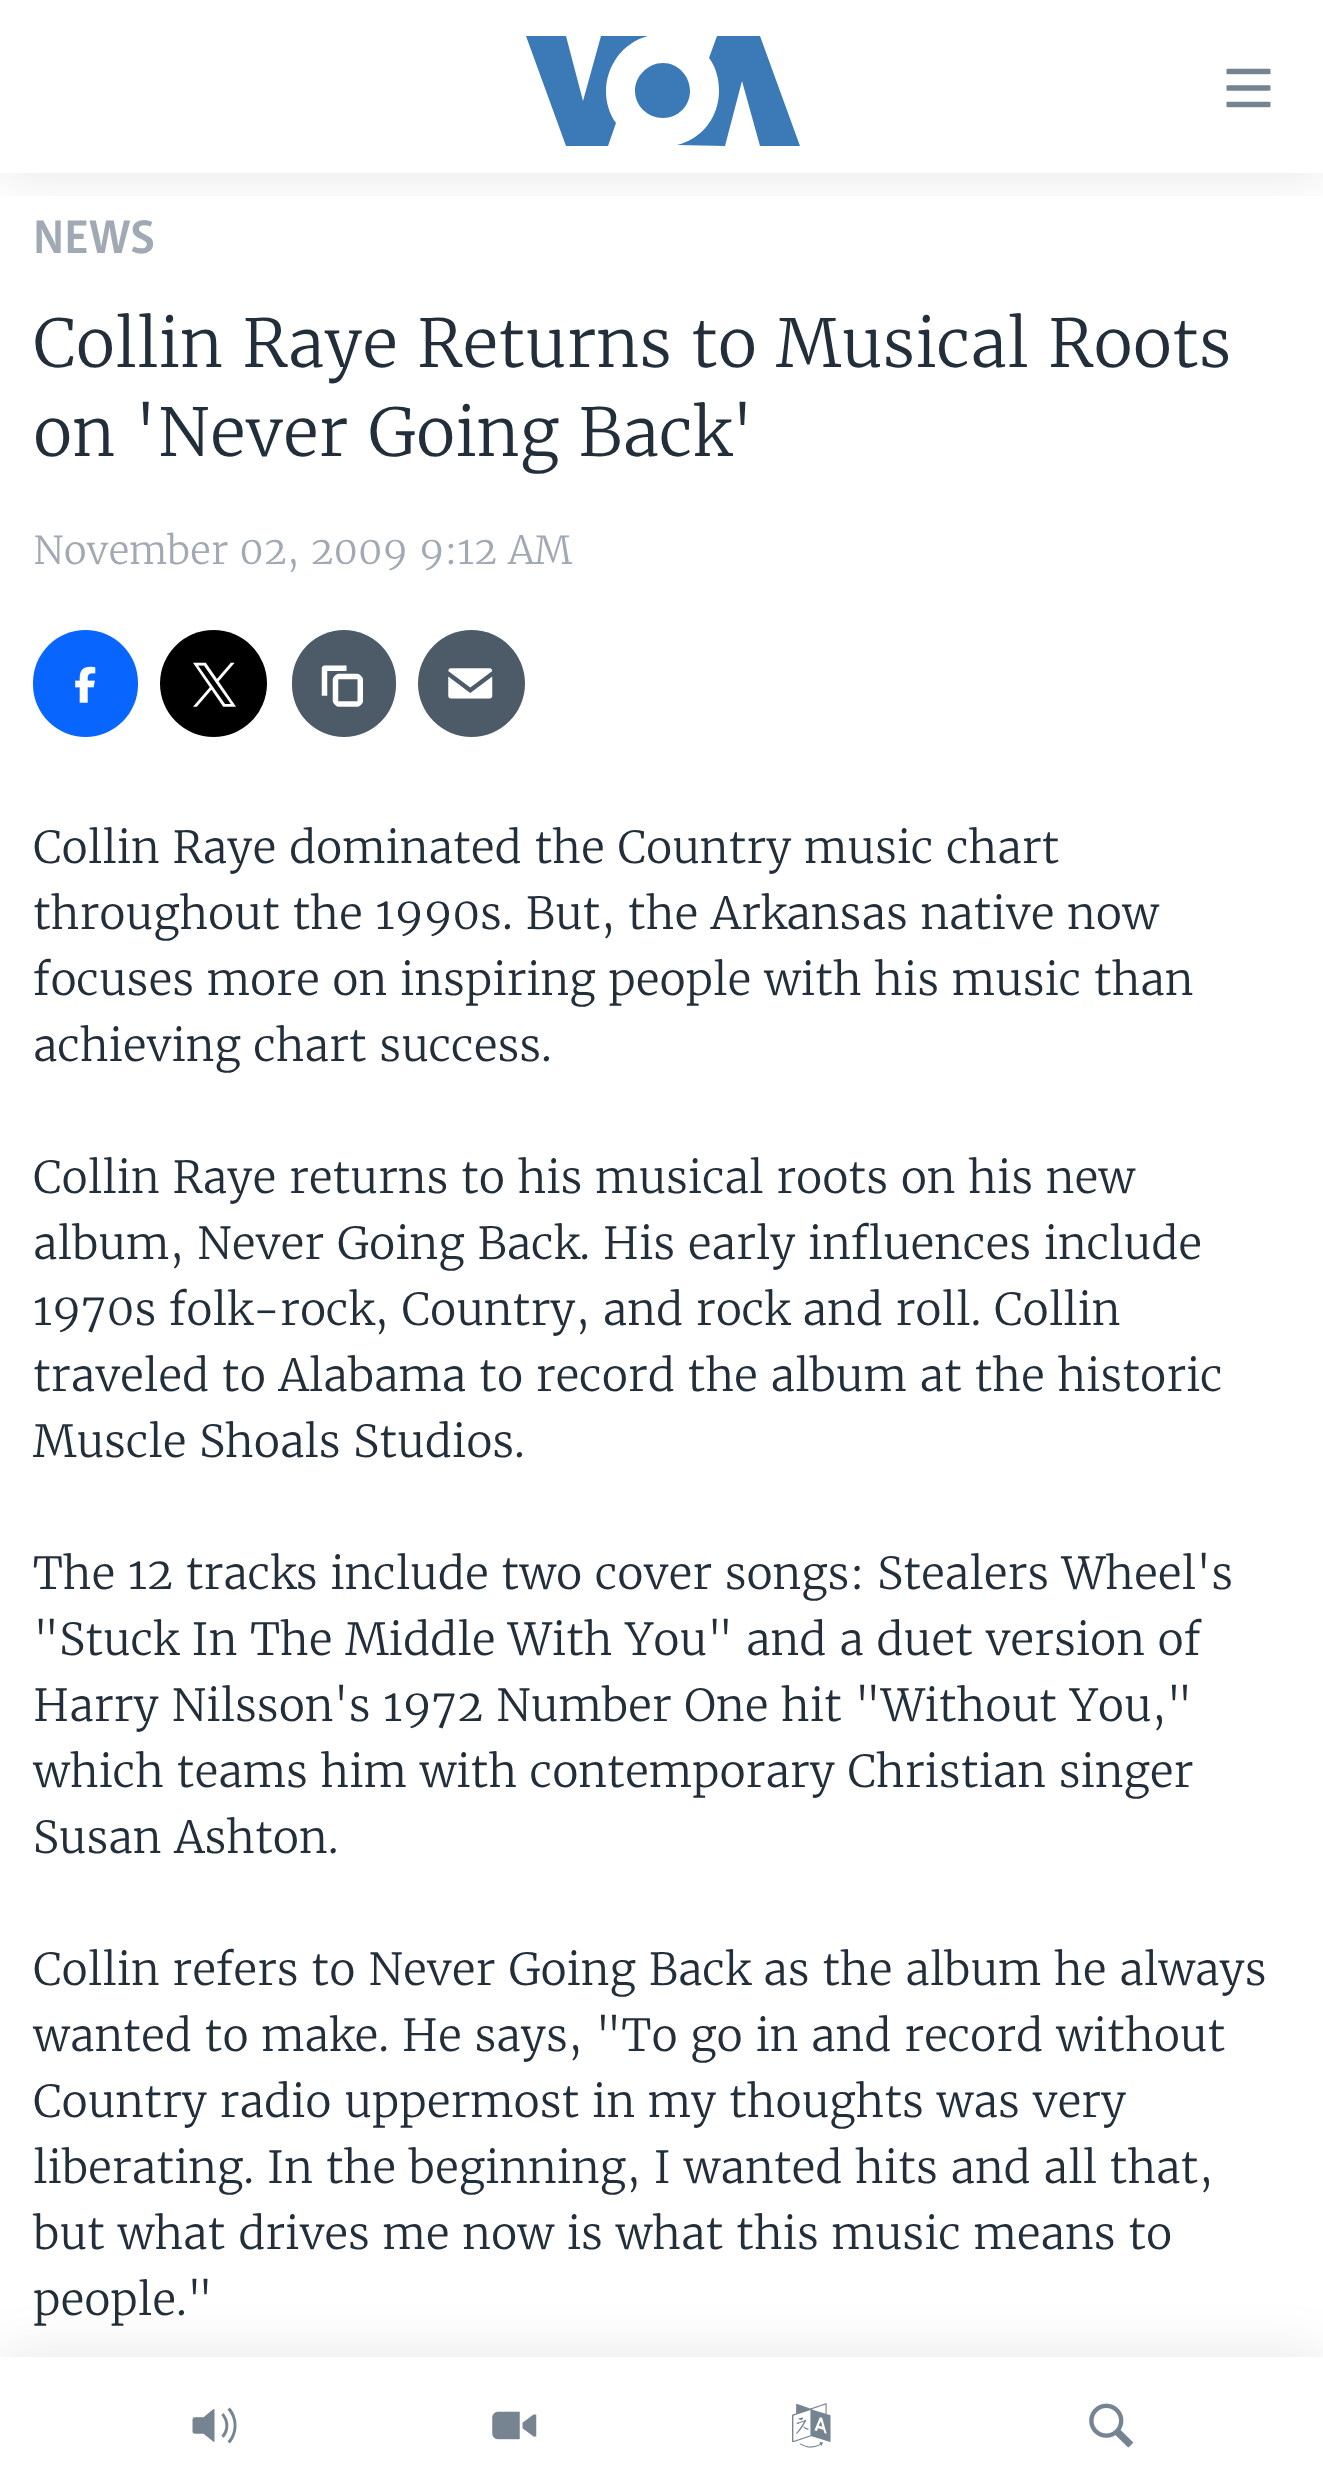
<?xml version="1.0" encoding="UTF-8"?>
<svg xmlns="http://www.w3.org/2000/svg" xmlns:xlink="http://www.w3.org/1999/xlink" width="1323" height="2492">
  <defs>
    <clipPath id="clip1"><rect x="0" y="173" width="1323" height="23" /></clipPath>
  </defs>
  <rect width="100%" height="100%" fill="#ffffff" />
  <g clip-path="url(#clip1)">
    <rect width="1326" height="173" fill="#000000" fill-opacity="0.1" filter="blur(27.5px)" />
  </g>
  <path d="M 616 123 l -8 23 h -42 l -40 -110 h 40 l 17 65 l 18 -65 h 47 c -38 10 -54 56 -32 87 z m 47 -60 c -15 0 -28 13 -28 28 c 0 15 13 27 28 27 c 15 0 27 -12 27 -27 c 0 -15 -12 -28 -27 -28 z m 56 28 c 0 26 -17 48 -42 54 l 48 1 l 17 -65 l 18 65 h 40 l -40 -110 h -43 l -8 22 c 7 9 10 21 10 33 z" fill="#3b79b7" />
  <image x="1226" y="68" width="45" height="40" xlink:href="image1.png" />
  <rect y="2357" width="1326" height="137" fill="#000000" fill-opacity="0.1" filter="blur(27.5px)" />
  <rect y="2357" width="1323" height="135" fill="#ffffff" />
  <image x="192" y="2407" width="45" height="37" xlink:href="image2.png" />
  <image x="492" y="2411" width="45" height="29" xlink:href="image3.png" />
  <image x="792" y="2403" width="39" height="45" xlink:href="image4.png" />
  <image x="1089" y="2403" width="44" height="45" xlink:href="image5.png" />
  <rect x="33" y="630" width="105" height="107" rx="52.5" fill="#0866ff" />
  <image x="75" y="666" width="21" height="37" xlink:href="image6.png" />
  <circle cx="213.5" cy="683.5" r="53.5" fill="#000000" />
  <image x="193" y="662" width="43" height="45" xlink:href="image7.png" />
  <rect x="292" y="630" width="104" height="107" rx="52" fill="#4d5a67" />
  <image x="321" y="665" width="43" height="42" xlink:href="image8.png" />
  <circle cx="471.5" cy="683.5" r="53.5" fill="#4d5a67" />
  <image x="448" y="668" width="45" height="31" xlink:href="image9.png" />
  <text x="33" y="253" style="font-family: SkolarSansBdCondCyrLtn; font-size: 48.5px; font-weight: bold; fill: #a1aab4">NEWS</text>
  <text x="33" y="367" style="font-family: Merriweather; font-size: 66px; font-weight: 300; fill: #222f3a">Collin Raye Returns to Musical Roots</text>
  <text x="33" y="456" style="font-family: Merriweather; font-size: 66px; font-weight: 300; fill: #222f3a">on 'Never Going Back'</text>
  <text x="33" y="564" style="font-family: Merriweather; font-size: 38.5px; font-weight: 300; fill: #a1aab4">November 02, 2009 9:12 AM</text>
  <text x="33" y="863" style="font-family: Merriweather; font-size: 44px; font-weight: 300; fill: #222f3a">Collin Raye dominated the Country music chart</text>
  <text x="33" y="929" style="font-family: Merriweather; font-size: 44px; font-weight: 300; fill: #222f3a">throughout the 1990s. But, the Arkansas native now</text>
  <text x="33" y="995" style="font-family: Merriweather; font-size: 44px; font-weight: 300; fill: #222f3a">focuses more on inspiring people with his music than</text>
  <text x="33" y="1061" style="font-family: Merriweather; font-size: 44px; font-weight: 300; fill: #222f3a">achieving chart success.</text>
  <text x="33" y="1193" style="font-family: Merriweather; font-size: 44px; font-weight: 300; fill: #222f3a">Collin Raye returns to his musical roots on his new</text>
  <text x="33" y="1259" style="font-family: Merriweather; font-size: 44px; font-weight: 300; fill: #222f3a">album, Never Going Back. His early influences include</text>
  <text x="33" y="1325" style="font-family: Merriweather; font-size: 44px; font-weight: 300; fill: #222f3a">1970s folk-rock, Country, and rock and roll. Collin</text>
  <text x="33" y="1391" style="font-family: Merriweather; font-size: 44px; font-weight: 300; fill: #222f3a">traveled to Alabama to record the album at the historic</text>
  <text x="33" y="1457" style="font-family: Merriweather; font-size: 44px; font-weight: 300; fill: #222f3a">Muscle Shoals Studios.</text>
  <text x="33" y="1589" style="font-family: Merriweather; font-size: 44px; font-weight: 300; fill: #222f3a">The 12 tracks include two cover songs: Stealers Wheel's</text>
  <text x="33" y="1655" style="font-family: Merriweather; font-size: 44px; font-weight: 300; fill: #222f3a">"Stuck In The Middle With You" and a duet version of</text>
  <text x="33" y="1721" style="font-family: Merriweather; font-size: 44px; font-weight: 300; fill: #222f3a">Harry Nilsson's 1972 Number One hit "Without You,"</text>
  <text x="33" y="1787" style="font-family: Merriweather; font-size: 44px; font-weight: 300; fill: #222f3a">which teams him with contemporary Christian singer</text>
  <text x="33" y="1853" style="font-family: Merriweather; font-size: 44px; font-weight: 300; fill: #222f3a">Susan Ashton.</text>
  <text x="33" y="1985" style="font-family: Merriweather; font-size: 44px; font-weight: 300; fill: #222f3a">Collin refers to Never Going Back as the album he always</text>
  <text x="33" y="2051" style="font-family: Merriweather; font-size: 44px; font-weight: 300; fill: #222f3a">wanted to make. He says, "To go in and record without</text>
  <text x="33" y="2117" style="font-family: Merriweather; font-size: 44px; font-weight: 300; fill: #222f3a">Country radio uppermost in my thoughts was very</text>
  <text x="33" y="2183" style="font-family: Merriweather; font-size: 44px; font-weight: 300; fill: #222f3a">liberating. In the beginning, I wanted hits and all that,</text>
  <text x="33" y="2249" style="font-family: Merriweather; font-size: 44px; font-weight: 300; fill: #222f3a">but what drives me now is what this music means to</text>
  <text x="33" y="2315" style="font-family: Merriweather; font-size: 44px; font-weight: 300; fill: #222f3a">people."</text>
</svg>
